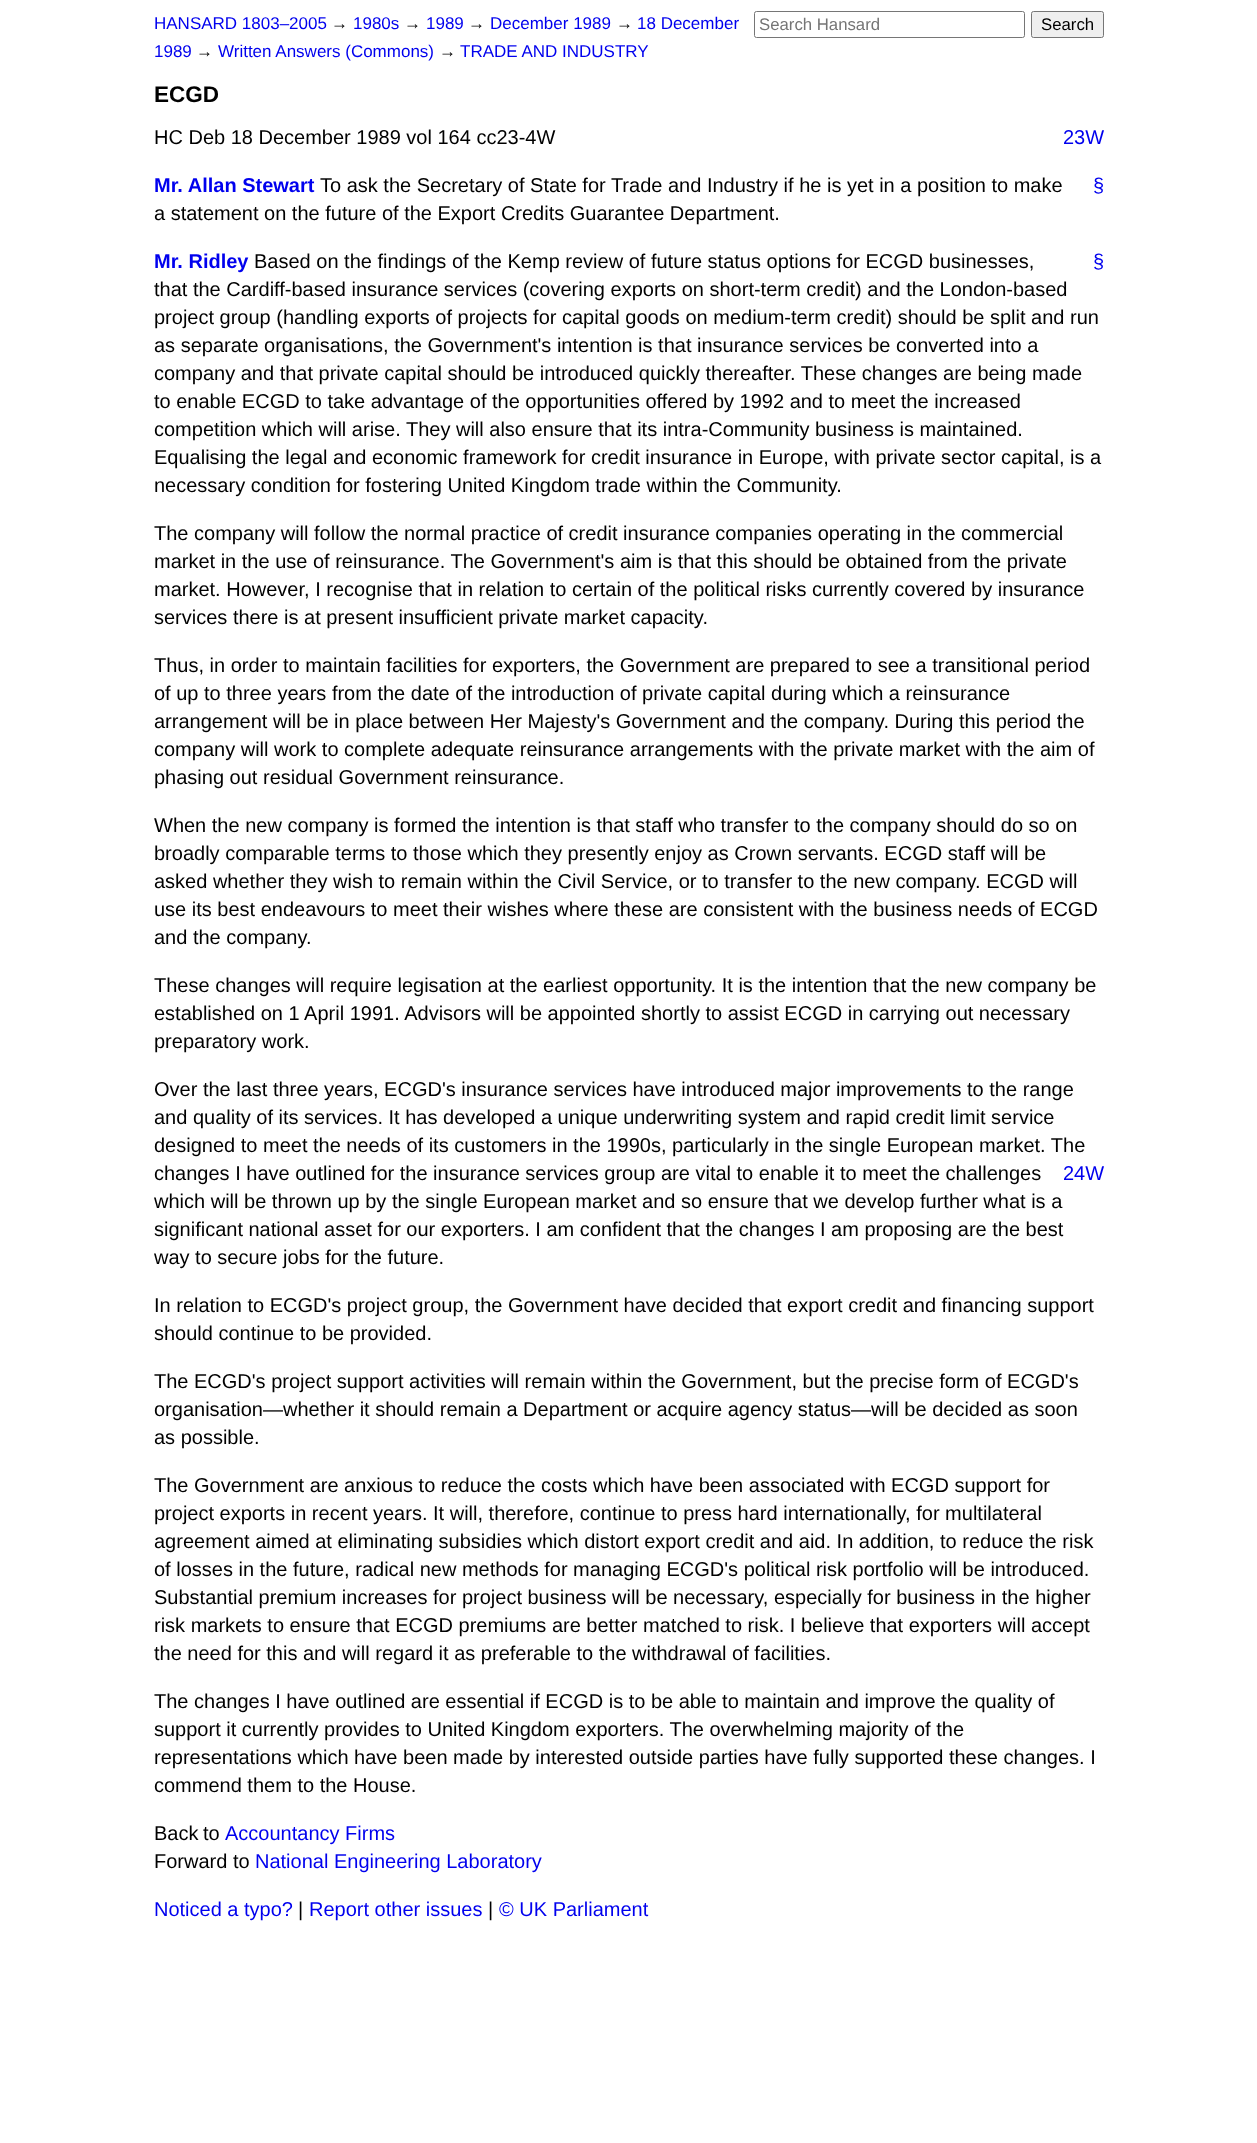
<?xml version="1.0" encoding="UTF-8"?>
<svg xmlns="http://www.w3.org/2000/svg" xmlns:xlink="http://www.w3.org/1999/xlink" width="1257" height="2143">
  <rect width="100%" height="100%" fill="#ffffff" />
  <rect x="754.5" y="11.5" width="270" height="26" rx="2" fill="none" stroke="#767676" />
  <rect x="1031.5" y="11.5" width="72" height="26" rx="2" fill="#efefef" stroke="#767676" />
  <text x="154" y="29" style="font-family: Liberation Sans; font-size: 17px; fill: #0000ee">HANSARD 1803–2005</text>
  <text x="331" y="29" style="font-family: Liberation Sans; font-size: 17px; fill: #000000">→</text>
  <text x="353" y="29" style="font-family: Liberation Sans; font-size: 17px; fill: #0000ee">1980s</text>
  <text x="404" y="29" style="font-family: Liberation Sans; font-size: 17px; fill: #000000">→</text>
  <text x="426" y="29" style="font-family: Liberation Sans; font-size: 17px; fill: #0000ee">1989</text>
  <text x="468" y="29" style="font-family: Liberation Sans; font-size: 17px; fill: #000000">→</text>
  <text x="490" y="29" style="font-family: Liberation Sans; font-size: 17px; fill: #0000ee">December 1989</text>
  <text x="616" y="29" style="font-family: Liberation Sans; font-size: 17px; fill: #000000">→</text>
  <text x="637" y="29" style="font-family: Liberation Sans; font-size: 17px; fill: #0000ee">18 December</text>
  <text x="154" y="57" style="font-family: Liberation Sans; font-size: 17px; fill: #0000ee">1989</text>
  <text x="196" y="57" style="font-family: Liberation Sans; font-size: 17px; fill: #000000">→</text>
  <text x="218" y="57" style="font-family: Liberation Sans; font-size: 17px; fill: #0000ee">Written Answers (Commons)</text>
  <text x="439" y="57" style="font-family: Liberation Sans; font-size: 17px; fill: #000000">→</text>
  <text x="460" y="57" style="font-family: Liberation Sans; font-size: 17px; fill: #0000ee">TRADE AND INDUSTRY</text>
  <text x="759" y="30" style="font-family: Liberation Sans; font-size: 16.75px; fill: #757575">Search Hansard</text>
  <text x="1041" y="30" style="font-family: Liberation Sans; font-size: 16.75px; fill: #000000">Search</text>
  <text x="154" y="102" style="font-family: Liberation Sans; font-size: 22.5px; font-weight: bold; fill: #000000">ECGD</text>
  <text x="154" y="144" style="font-family: Liberation Sans; font-size: 20px; fill: #000000">HC Deb 18 December 1989 vol 164 cc23-4W</text>
  <text x="1063" y="144" style="font-family: Liberation Sans; font-size: 20px; fill: #0000ee">23W</text>
  <text x="154" y="192" style="font-family: Liberation Sans; font-size: 20px; font-weight: bold; fill: #0000ee">Mr. Allan Stewart</text>
  <text x="320" y="192" style="font-family: Liberation Sans; font-size: 20px; fill: #000000">To ask the Secretary of State for Trade and Industry if he is yet in a position to make</text>
  <text x="1093" y="192" style="font-family: Liberation Sans; font-size: 20px; fill: #0000ee">§</text>
  <text x="154" y="220" style="font-family: Liberation Sans; font-size: 20px; fill: #000000">a statement on the future of the Export Credits Guarantee Department.</text>
  <text x="154" y="268" style="font-family: Liberation Sans; font-size: 20px; font-weight: bold; fill: #0000ee">Mr. Ridley</text>
  <text x="254" y="268" style="font-family: Liberation Sans; font-size: 20px; fill: #000000">Based on the findings of the Kemp review of future status options for ECGD businesses,</text>
  <text x="1093" y="268" style="font-family: Liberation Sans; font-size: 20px; fill: #0000ee">§</text>
  <text x="154" y="296" style="font-family: Liberation Sans; font-size: 20px; fill: #000000">that the Cardiff-based insurance services (covering exports on short-term credit) and the London-based</text>
  <text x="154" y="324" style="font-family: Liberation Sans; font-size: 20px; fill: #000000">project group (handling exports of projects for capital goods on medium-term credit) should be split and run</text>
  <text x="154" y="352" style="font-family: Liberation Sans; font-size: 20px; fill: #000000">as separate organisations, the Government's intention is that insurance services be converted into a</text>
  <text x="154" y="380" style="font-family: Liberation Sans; font-size: 20px; fill: #000000">company and that private capital should be introduced quickly thereafter. These changes are being made</text>
  <text x="154" y="408" style="font-family: Liberation Sans; font-size: 20px; fill: #000000">to enable ECGD to take advantage of the opportunities offered by 1992 and to meet the increased</text>
  <text x="154" y="436" style="font-family: Liberation Sans; font-size: 20px; fill: #000000">competition which will arise. They will also ensure that its intra-Community business is maintained.</text>
  <text x="154" y="464" style="font-family: Liberation Sans; font-size: 20px; fill: #000000">Equalising the legal and economic framework for credit insurance in Europe, with private sector capital, is a</text>
  <text x="154" y="492" style="font-family: Liberation Sans; font-size: 20px; fill: #000000">necessary condition for fostering United Kingdom trade within the Community.</text>
  <text x="154" y="540" style="font-family: Liberation Sans; font-size: 20px; fill: #000000">The company will follow the normal practice of credit insurance companies operating in the commercial</text>
  <text x="154" y="568" style="font-family: Liberation Sans; font-size: 20px; fill: #000000">market in the use of reinsurance. The Government's aim is that this should be obtained from the private</text>
  <text x="154" y="596" style="font-family: Liberation Sans; font-size: 20px; fill: #000000">market. However, I recognise that in relation to certain of the political risks currently covered by insurance</text>
  <text x="154" y="624" style="font-family: Liberation Sans; font-size: 20px; fill: #000000">services there is at present insufficient private market capacity.</text>
  <text x="154" y="672" style="font-family: Liberation Sans; font-size: 20px; fill: #000000">Thus, in order to maintain facilities for exporters, the Government are prepared to see a transitional period</text>
  <text x="154" y="700" style="font-family: Liberation Sans; font-size: 20px; fill: #000000">of up to three years from the date of the introduction of private capital during which a reinsurance</text>
  <text x="154" y="728" style="font-family: Liberation Sans; font-size: 20px; fill: #000000">arrangement will be in place between Her Majesty's Government and the company. During this period the</text>
  <text x="154" y="756" style="font-family: Liberation Sans; font-size: 20px; fill: #000000">company will work to complete adequate reinsurance arrangements with the private market with the aim of</text>
  <text x="154" y="784" style="font-family: Liberation Sans; font-size: 20px; fill: #000000">phasing out residual Government reinsurance.</text>
  <text x="154" y="832" style="font-family: Liberation Sans; font-size: 20px; fill: #000000">When the new company is formed the intention is that staff who transfer to the company should do so on</text>
  <text x="154" y="860" style="font-family: Liberation Sans; font-size: 20px; fill: #000000">broadly comparable terms to those which they presently enjoy as Crown servants. ECGD staff will be</text>
  <text x="154" y="888" style="font-family: Liberation Sans; font-size: 20px; fill: #000000">asked whether they wish to remain within the Civil Service, or to transfer to the new company. ECGD will</text>
  <text x="154" y="916" style="font-family: Liberation Sans; font-size: 20px; fill: #000000">use its best endeavours to meet their wishes where these are consistent with the business needs of ECGD</text>
  <text x="154" y="944" style="font-family: Liberation Sans; font-size: 20px; fill: #000000">and the company.</text>
  <text x="154" y="992" style="font-family: Liberation Sans; font-size: 20px; fill: #000000">These changes will require legisation at the earliest opportunity. It is the intention that the new company be</text>
  <text x="154" y="1020" style="font-family: Liberation Sans; font-size: 20px; fill: #000000">established on 1 April 1991. Advisors will be appointed shortly to assist ECGD in carrying out necessary</text>
  <text x="154" y="1048" style="font-family: Liberation Sans; font-size: 20px; fill: #000000">preparatory work.</text>
  <text x="154" y="1096" style="font-family: Liberation Sans; font-size: 20px; fill: #000000">Over the last three years, ECGD's insurance services have introduced major improvements to the range</text>
  <text x="154" y="1124" style="font-family: Liberation Sans; font-size: 20px; fill: #000000">and quality of its services. It has developed a unique underwriting system and rapid credit limit service</text>
  <text x="154" y="1152" style="font-family: Liberation Sans; font-size: 20px; fill: #000000">designed to meet the needs of its customers in the 1990s, particularly in the single European market. The</text>
  <text x="154" y="1180" style="font-family: Liberation Sans; font-size: 20px; fill: #000000">changes I have outlined for the insurance services group are vital to enable it to meet the challenges</text>
  <text x="1063" y="1180" style="font-family: Liberation Sans; font-size: 20px; fill: #0000ee">24W</text>
  <text x="154" y="1208" style="font-family: Liberation Sans; font-size: 20px; fill: #000000">which will be thrown up by the single European market and so ensure that we develop further what is a</text>
  <text x="154" y="1236" style="font-family: Liberation Sans; font-size: 20px; fill: #000000">significant national asset for our exporters. I am confident that the changes I am proposing are the best</text>
  <text x="154" y="1264" style="font-family: Liberation Sans; font-size: 20px; fill: #000000">way to secure jobs for the future.</text>
  <text x="154" y="1312" style="font-family: Liberation Sans; font-size: 20px; fill: #000000">In relation to ECGD's project group, the Government have decided that export credit and financing support</text>
  <text x="154" y="1340" style="font-family: Liberation Sans; font-size: 20px; fill: #000000">should continue to be provided.</text>
  <text x="154" y="1388" style="font-family: Liberation Sans; font-size: 20px; fill: #000000">The ECGD's project support activities will remain within the Government, but the precise form of ECGD's</text>
  <text x="154" y="1416" style="font-family: Liberation Sans; font-size: 20px; fill: #000000">organisation—whether it should remain a Department or acquire agency status—will be decided as soon</text>
  <text x="154" y="1444" style="font-family: Liberation Sans; font-size: 20px; fill: #000000">as possible.</text>
  <text x="154" y="1492" style="font-family: Liberation Sans; font-size: 20px; fill: #000000">The Government are anxious to reduce the costs which have been associated with ECGD support for</text>
  <text x="154" y="1520" style="font-family: Liberation Sans; font-size: 20px; fill: #000000">project exports in recent years. It will, therefore, continue to press hard internationally, for multilateral</text>
  <text x="154" y="1548" style="font-family: Liberation Sans; font-size: 20px; fill: #000000">agreement aimed at eliminating subsidies which distort export credit and aid. In addition, to reduce the risk</text>
  <text x="154" y="1576" style="font-family: Liberation Sans; font-size: 20px; fill: #000000">of losses in the future, radical new methods for managing ECGD's political risk portfolio will be introduced.</text>
  <text x="154" y="1604" style="font-family: Liberation Sans; font-size: 20px; fill: #000000">Substantial premium increases for project business will be necessary, especially for business in the higher</text>
  <text x="154" y="1632" style="font-family: Liberation Sans; font-size: 20px; fill: #000000">risk markets to ensure that ECGD premiums are better matched to risk. I believe that exporters will accept</text>
  <text x="154" y="1660" style="font-family: Liberation Sans; font-size: 20px; fill: #000000">the need for this and will regard it as preferable to the withdrawal of facilities.</text>
  <text x="154" y="1708" style="font-family: Liberation Sans; font-size: 20px; fill: #000000">The changes I have outlined are essential if ECGD is to be able to maintain and improve the quality of</text>
  <text x="154" y="1736" style="font-family: Liberation Sans; font-size: 20px; fill: #000000">support it currently provides to United Kingdom exporters. The overwhelming majority of the</text>
  <text x="154" y="1764" style="font-family: Liberation Sans; font-size: 20px; fill: #000000">representations which have been made by interested outside parties have fully supported these changes. I</text>
  <text x="154" y="1792" style="font-family: Liberation Sans; font-size: 20px; fill: #000000">commend them to the House.</text>
  <text x="154" y="1840" word-spacing="-1" style="font-family: Liberation Sans; font-size: 20px; fill: #000000">Back to</text>
  <text x="225" y="1840" style="font-family: Liberation Sans; font-size: 20px; fill: #0000ee">Accountancy Firms</text>
  <text x="154" y="1868" style="font-family: Liberation Sans; font-size: 20px; fill: #000000">Forward to</text>
  <text x="255" y="1868" style="font-family: Liberation Sans; font-size: 20px; fill: #0000ee">National Engineering Laboratory</text>
  <text x="154" y="1916" style="font-family: Liberation Sans; font-size: 20px; fill: #0000ee">Noticed a typo?</text>
  <text x="298" y="1916" style="font-family: Liberation Sans; font-size: 20px; fill: #000000">|</text>
  <text x="309" y="1916" style="font-family: Liberation Sans; font-size: 20px; fill: #0000ee">Report other issues</text>
  <text x="488" y="1916" style="font-family: Liberation Sans; font-size: 20px; fill: #000000">|</text>
  <text x="499" y="1916" style="font-family: Liberation Sans; font-size: 20px; fill: #0000ee">© UK Parliament</text>
</svg>
